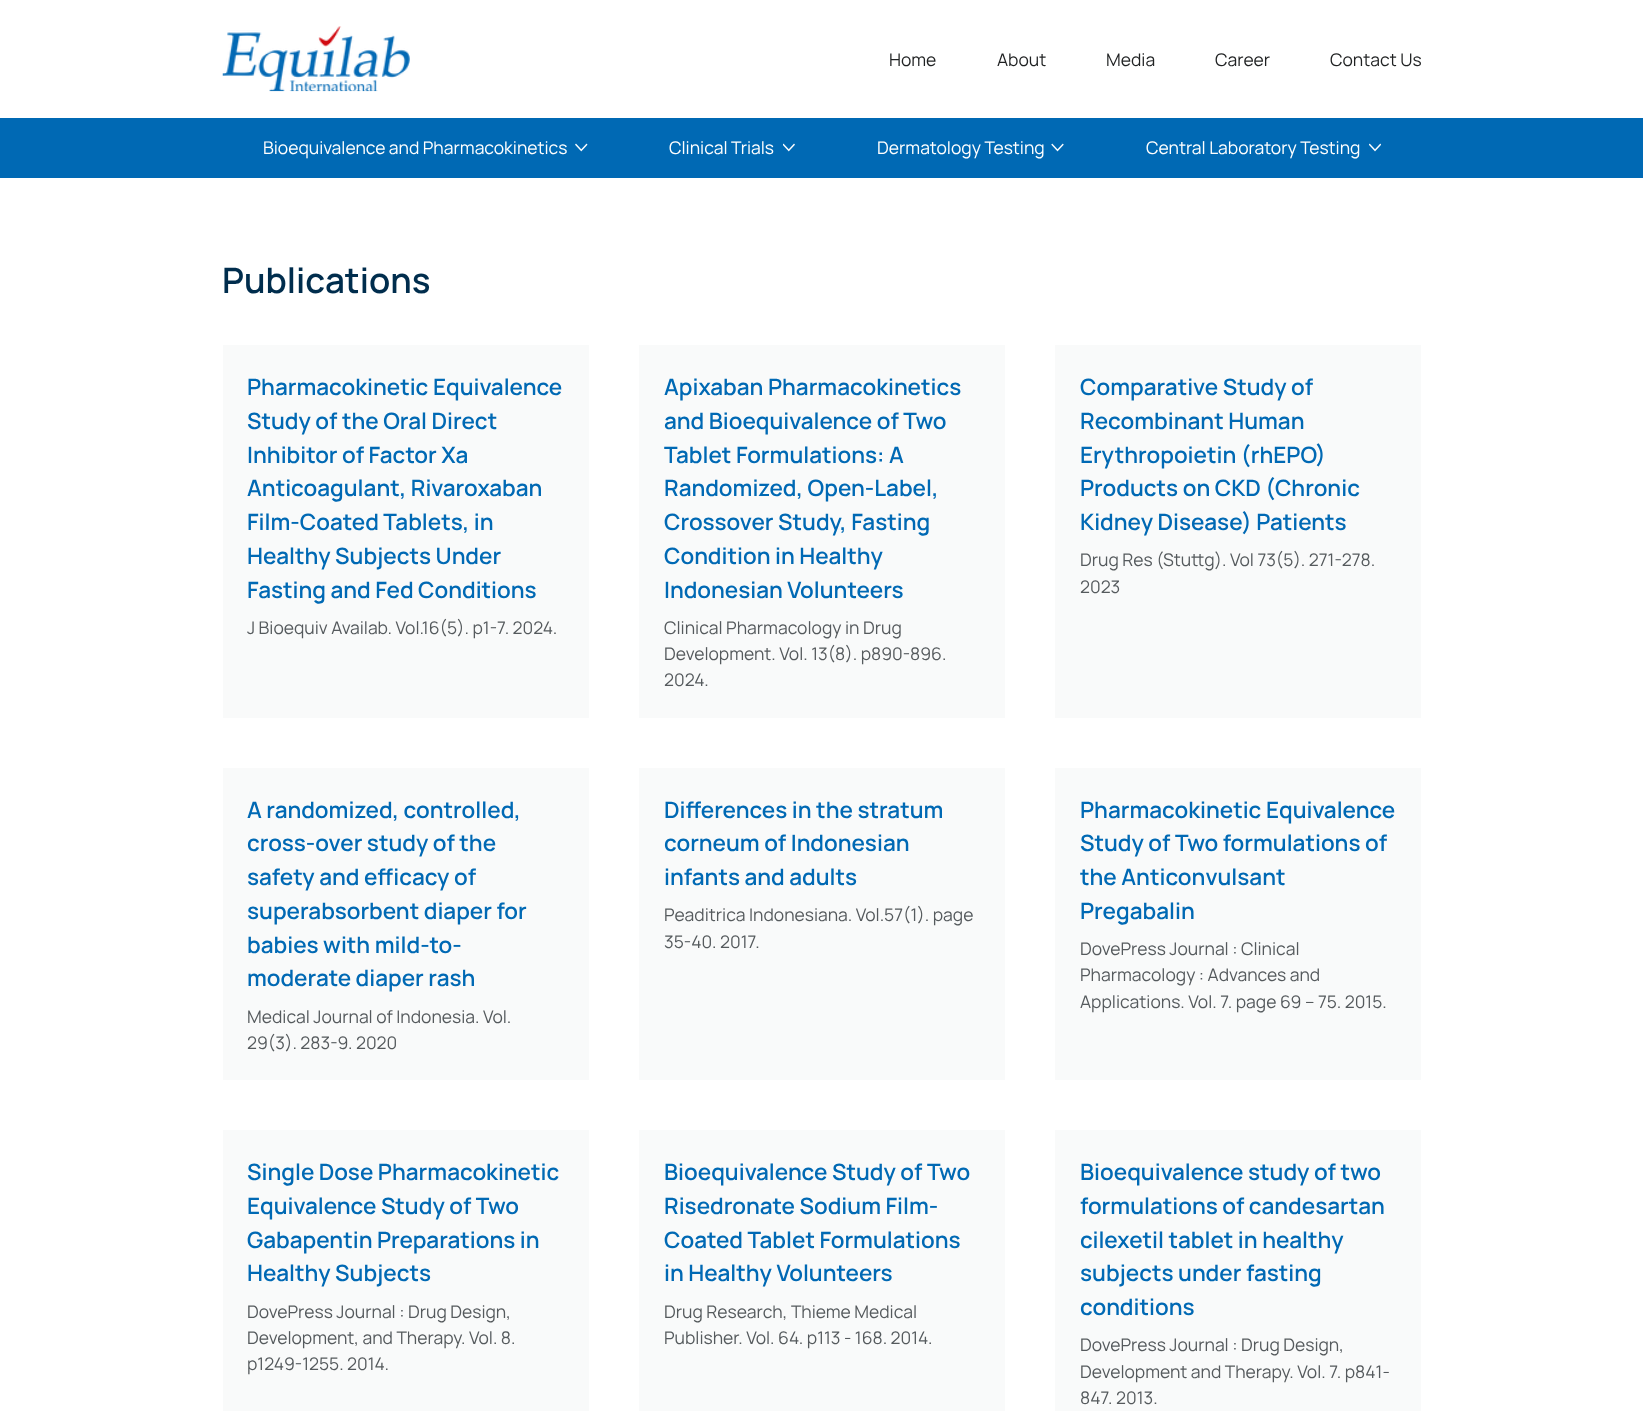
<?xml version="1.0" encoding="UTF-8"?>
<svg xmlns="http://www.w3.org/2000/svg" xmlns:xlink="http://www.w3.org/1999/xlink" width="1643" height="1411">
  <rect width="100%" height="100%" fill="#ffffff" />
  <image x="222" y="26" width="188" height="66" xlink:href="image1.png" />
  <rect y="118" width="1643" height="60" fill="#0069b4" />
  <image x="575" y="143" width="13" height="9" xlink:href="image2.png" />
  <image x="783" y="143" width="12" height="9" xlink:href="image3.png" />
  <image x="1051" y="143" width="13" height="9" xlink:href="image4.png" />
  <image x="1369" y="143" width="12" height="9" xlink:href="image5.png" />
  <rect x="223" y="345" width="366" height="373" fill="#f9fafa" />
  <rect x="639" y="345" width="366" height="373" fill="#f9fafa" />
  <rect x="1055" y="345" width="366" height="373" fill="#f9fafa" />
  <rect x="223" y="768" width="366" height="312" fill="#f9fafa" />
  <rect x="639" y="768" width="366" height="312" fill="#f9fafa" />
  <rect x="1055" y="768" width="366" height="312" fill="#f9fafa" />
  <rect x="223" y="1130" width="366" height="281" fill="#f9fafa" />
  <rect x="639" y="1130" width="366" height="281" fill="#f9fafa" />
  <rect x="1055" y="1130" width="366" height="281" fill="#f9fafa" />
  <text x="889" y="66" style="font-family: Manrope; font-size: 17.5px; fill: #1f2122">Home</text>
  <text x="997" y="66" style="font-family: Manrope; font-size: 17.5px; fill: #1f2122">About</text>
  <text x="1106" y="66" style="font-family: Manrope; font-size: 17.5px; fill: #1f2122">Media</text>
  <text x="1215" y="66" style="font-family: Manrope; font-size: 17.5px; fill: #1f2122">Career</text>
  <text x="1330" y="66" style="font-family: Manrope; font-size: 17.5px; fill: #1f2122">Contact Us</text>
  <text x="263" y="154" style="font-family: Manrope; font-size: 17.5px; fill: #ffffff">Bioequivalence and Pharmacokinetics</text>
  <text x="669" y="154" style="font-family: Manrope; font-size: 17.5px; fill: #ffffff">Clinical Trials</text>
  <text x="877" y="154" style="font-family: Manrope; font-size: 17.5px; fill: #ffffff">Dermatology Testing</text>
  <text x="1146" y="154" style="font-family: Manrope; font-size: 17.5px; fill: #ffffff">Central Laboratory Testing</text>
  <text x="222" y="293" style="font-family: Manrope; font-size: 35px; font-weight: 600; fill: #002d4d">Publications</text>
  <text x="247" y="395" style="font-family: Manrope; font-size: 22.5px; font-weight: 600; fill: #0069b4">Pharmacokinetic Equivalence</text>
  <text x="247" y="429" style="font-family: Manrope; font-size: 22.5px; font-weight: 600; fill: #0069b4">Study of the Oral Direct</text>
  <text x="247" y="463" style="font-family: Manrope; font-size: 22.5px; font-weight: 600; fill: #0069b4">Inhibitor of Factor Xa</text>
  <text x="247" y="496" style="font-family: Manrope; font-size: 22.5px; font-weight: 600; fill: #0069b4">Anticoagulant, Rivaroxaban</text>
  <text x="247" y="530" style="font-family: Manrope; font-size: 22.5px; font-weight: 600; fill: #0069b4">Film-Coated Tablets, in</text>
  <text x="247" y="564" style="font-family: Manrope; font-size: 22.5px; font-weight: 600; fill: #0069b4">Healthy Subjects Under</text>
  <text x="247" y="598" style="font-family: Manrope; font-size: 22.5px; font-weight: 600; fill: #0069b4">Fasting and Fed Conditions</text>
  <text x="247" y="634" style="font-family: Manrope; font-size: 17.5px; fill: #555a5d">J Bioequiv Availab. Vol.16(5). p1-7. 2024.</text>
  <text x="664" y="395" style="font-family: Manrope; font-size: 22.5px; font-weight: 600; fill: #0069b4">Apixaban Pharmacokinetics</text>
  <text x="664" y="429" style="font-family: Manrope; font-size: 22.5px; font-weight: 600; fill: #0069b4">and Bioequivalence of Two</text>
  <text x="664" y="463" style="font-family: Manrope; font-size: 22.5px; font-weight: 600; fill: #0069b4">Tablet Formulations: A</text>
  <text x="664" y="496" style="font-family: Manrope; font-size: 22.5px; font-weight: 600; fill: #0069b4">Randomized, Open-Label,</text>
  <text x="664" y="530" style="font-family: Manrope; font-size: 22.5px; font-weight: 600; fill: #0069b4">Crossover Study, Fasting</text>
  <text x="664" y="564" style="font-family: Manrope; font-size: 22.5px; font-weight: 600; fill: #0069b4">Condition in Healthy</text>
  <text x="664" y="598" style="font-family: Manrope; font-size: 22.5px; font-weight: 600; fill: #0069b4">Indonesian Volunteers</text>
  <text x="664" y="634" style="font-family: Manrope; font-size: 17.5px; fill: #555a5d">Clinical Pharmacology in Drug</text>
  <text x="664" y="660" style="font-family: Manrope; font-size: 17.5px; fill: #555a5d">Development. Vol. 13(8). p890-896.</text>
  <text x="664" y="686" style="font-family: Manrope; font-size: 17.5px; fill: #555a5d">2024.</text>
  <text x="1080" y="395" style="font-family: Manrope; font-size: 22.5px; font-weight: 600; fill: #0069b4">Comparative Study of</text>
  <text x="1080" y="429" style="font-family: Manrope; font-size: 22.5px; font-weight: 600; fill: #0069b4">Recombinant Human</text>
  <text x="1080" y="463" style="font-family: Manrope; font-size: 22.5px; font-weight: 600; fill: #0069b4">Erythropoietin (rhEPO)</text>
  <text x="1080" y="496" style="font-family: Manrope; font-size: 22.5px; font-weight: 600; fill: #0069b4">Products on CKD (Chronic</text>
  <text x="1080" y="530" style="font-family: Manrope; font-size: 22.5px; font-weight: 600; fill: #0069b4">Kidney Disease) Patients</text>
  <text x="1080" y="566" style="font-family: Manrope; font-size: 17.5px; fill: #555a5d">Drug Res (Stuttg). Vol 73(5). 271-278.</text>
  <text x="1080" y="593" style="font-family: Manrope; font-size: 17.5px; fill: #555a5d">2023</text>
  <text x="247" y="818" style="font-family: Manrope; font-size: 22.5px; font-weight: 600; fill: #0069b4">A randomized, controlled,</text>
  <text x="247" y="851" style="font-family: Manrope; font-size: 22.5px; font-weight: 600; fill: #0069b4">cross-over study of the</text>
  <text x="247" y="885" style="font-family: Manrope; font-size: 22.5px; font-weight: 600; fill: #0069b4">safety and efficacy of</text>
  <text x="247" y="919" style="font-family: Manrope; font-size: 22.5px; font-weight: 600; fill: #0069b4">superabsorbent diaper for</text>
  <text x="247" y="953" style="font-family: Manrope; font-size: 22.5px; font-weight: 600; fill: #0069b4">babies with mild-to-</text>
  <text x="247" y="986" style="font-family: Manrope; font-size: 22.5px; font-weight: 600; fill: #0069b4">moderate diaper rash</text>
  <text x="247" y="1023" style="font-family: Manrope; font-size: 17.5px; fill: #555a5d">Medical Journal of Indonesia. Vol.</text>
  <text x="247" y="1049" style="font-family: Manrope; font-size: 17.5px; fill: #555a5d">29(3). 283-9. 2020</text>
  <text x="664" y="818" style="font-family: Manrope; font-size: 22.5px; font-weight: 600; fill: #0069b4">Differences in the stratum</text>
  <text x="664" y="851" style="font-family: Manrope; font-size: 22.5px; font-weight: 600; fill: #0069b4">corneum of Indonesian</text>
  <text x="664" y="885" style="font-family: Manrope; font-size: 22.5px; font-weight: 600; fill: #0069b4">infants and adults</text>
  <text x="664" y="921" style="font-family: Manrope; font-size: 17.5px; fill: #555a5d">Peaditrica Indonesiana. Vol.57(1). page</text>
  <text x="664" y="948" style="font-family: Manrope; font-size: 17.5px; fill: #555a5d">35-40. 2017.</text>
  <text x="1080" y="818" style="font-family: Manrope; font-size: 22.5px; font-weight: 600; fill: #0069b4">Pharmacokinetic Equivalence</text>
  <text x="1080" y="851" style="font-family: Manrope; font-size: 22.5px; font-weight: 600; fill: #0069b4">Study of Two formulations of</text>
  <text x="1080" y="885" style="font-family: Manrope; font-size: 22.5px; font-weight: 600; fill: #0069b4">the Anticonvulsant</text>
  <text x="1080" y="919" style="font-family: Manrope; font-size: 22.5px; font-weight: 600; fill: #0069b4">Pregabalin</text>
  <text x="1080" y="955" style="font-family: Manrope; font-size: 17.5px; fill: #555a5d">DovePress Journal : Clinical</text>
  <text x="1080" y="981" style="font-family: Manrope; font-size: 17.5px; fill: #555a5d">Pharmacology : Advances and</text>
  <text x="1080" y="1008" style="font-family: Manrope; font-size: 17.5px; fill: #555a5d">Applications. Vol. 7. page 69 – 75. 2015.</text>
  <text x="247" y="1180" style="font-family: Manrope; font-size: 22.5px; font-weight: 600; fill: #0069b4">Single Dose Pharmacokinetic</text>
  <text x="247" y="1214" style="font-family: Manrope; font-size: 22.5px; font-weight: 600; fill: #0069b4">Equivalence Study of Two</text>
  <text x="247" y="1248" style="font-family: Manrope; font-size: 22.5px; font-weight: 600; fill: #0069b4">Gabapentin Preparations in</text>
  <text x="247" y="1281" style="font-family: Manrope; font-size: 22.5px; font-weight: 600; fill: #0069b4">Healthy Subjects</text>
  <text x="247" y="1318" style="font-family: Manrope; font-size: 17.5px; fill: #555a5d">DovePress Journal : Drug Design,</text>
  <text x="247" y="1344" style="font-family: Manrope; font-size: 17.5px; fill: #555a5d">Development, and Therapy. Vol. 8.</text>
  <text x="247" y="1370" style="font-family: Manrope; font-size: 17.5px; fill: #555a5d">p1249-1255. 2014.</text>
  <text x="664" y="1180" style="font-family: Manrope; font-size: 22.5px; font-weight: 600; fill: #0069b4">Bioequivalence Study of Two</text>
  <text x="664" y="1214" style="font-family: Manrope; font-size: 22.5px; font-weight: 600; fill: #0069b4">Risedronate Sodium Film-</text>
  <text x="664" y="1248" style="font-family: Manrope; font-size: 22.5px; font-weight: 600; fill: #0069b4">Coated Tablet Formulations</text>
  <text x="664" y="1281" style="font-family: Manrope; font-size: 22.5px; font-weight: 600; fill: #0069b4">in Healthy Volunteers</text>
  <text x="664" y="1318" style="font-family: Manrope; font-size: 17.5px; fill: #555a5d">Drug Research, Thieme Medical</text>
  <text x="664" y="1344" style="font-family: Manrope; font-size: 17.5px; fill: #555a5d">Publisher. Vol. 64. p113 - 168. 2014.</text>
  <text x="1080" y="1180" style="font-family: Manrope; font-size: 22.5px; font-weight: 600; fill: #0069b4">Bioequivalence study of two</text>
  <text x="1080" y="1214" style="font-family: Manrope; font-size: 22.5px; font-weight: 600; fill: #0069b4">formulations of candesartan</text>
  <text x="1080" y="1248" style="font-family: Manrope; font-size: 22.5px; font-weight: 600; fill: #0069b4">cilexetil tablet in healthy</text>
  <text x="1080" y="1281" style="font-family: Manrope; font-size: 22.5px; font-weight: 600; fill: #0069b4">subjects under fasting</text>
  <text x="1080" y="1315" style="font-family: Manrope; font-size: 22.5px; font-weight: 600; fill: #0069b4">conditions</text>
  <text x="1080" y="1351" style="font-family: Manrope; font-size: 17.5px; fill: #555a5d">DovePress Journal : Drug Design,</text>
  <text x="1080" y="1378" style="font-family: Manrope; font-size: 17.5px; fill: #555a5d">Development and Therapy. Vol. 7. p841-</text>
  <text x="1080" y="1404" style="font-family: Manrope; font-size: 17.5px; fill: #555a5d">847. 2013.</text>
</svg>
